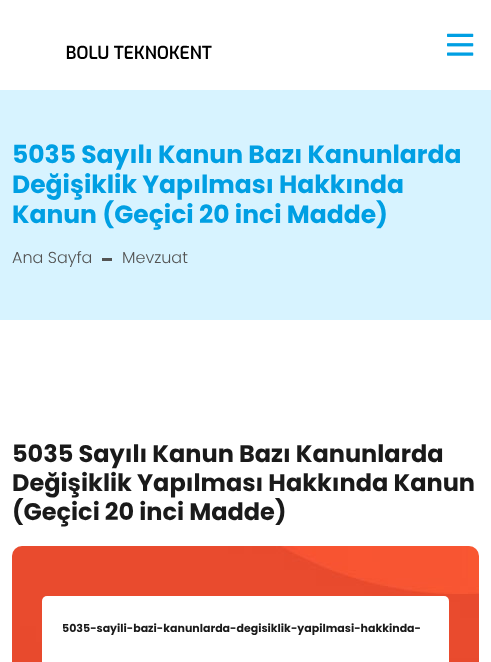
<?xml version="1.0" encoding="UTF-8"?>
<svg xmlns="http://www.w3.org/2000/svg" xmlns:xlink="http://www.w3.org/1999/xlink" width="491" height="662">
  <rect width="100%" height="100%" fill="#ffffff" />
  <image x="66" y="45" width="146" height="14" xlink:href="image1.png" />
  <image x="447" y="33" width="27" height="23" xlink:href="image2.png" />
  <rect y="90" width="491" height="230" fill="#d7f3ff" />
  <rect x="102" y="258" width="10" height="3" fill="#535353" />
  <rect x="12" y="546" width="467" height="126" rx="10" fill="#f4f4f4" />
  <image x="12" y="546" width="467" height="116" xlink:href="image3.png" />
  <rect x="42" y="596" width="407" height="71" rx="5" fill="#ffffff" />
  <text x="12" y="163" style="font-family: Poppins; font-size: 25px; font-weight: bold; fill: #009fe3">5035 Sayılı Kanun Bazı Kanunlarda</text>
  <text x="12" y="193" style="font-family: Poppins; font-size: 25px; font-weight: bold; fill: #009fe3">Değişiklik Yapılması Hakkında</text>
  <text x="12" y="223" style="font-family: Poppins; font-size: 25px; font-weight: bold; fill: #009fe3">Kanun (Geçici 20 inci Madde)</text>
  <text x="12" y="263" style="font-family: Poppins; font-size: 16px; font-weight: 300; fill: #535353">Ana Sayfa</text>
  <text x="122" y="263" style="font-family: Poppins; font-size: 16px; font-weight: 300; fill: #535353">Mevzuat</text>
  <text x="12" y="462" style="font-family: Poppins; font-size: 24px; font-weight: bold; fill: #1a1a1a">5035 Sayılı Kanun Bazı Kanunlarda</text>
  <text x="12" y="491" style="font-family: Poppins; font-size: 24px; font-weight: bold; fill: #1a1a1a">Değişiklik Yapılması Hakkında Kanun</text>
  <text x="12" y="520" style="font-family: Poppins; font-size: 24px; font-weight: bold; fill: #1a1a1a">(Geçici 20 inci Madde)</text>
  <text x="62" y="632" style="font-family: Poppins; font-size: 11px; font-weight: bold; fill: #1a1a1a">5035-sayili-bazi-kanunlarda-degisiklik-yapilmasi-hakkinda-</text>
</svg>
